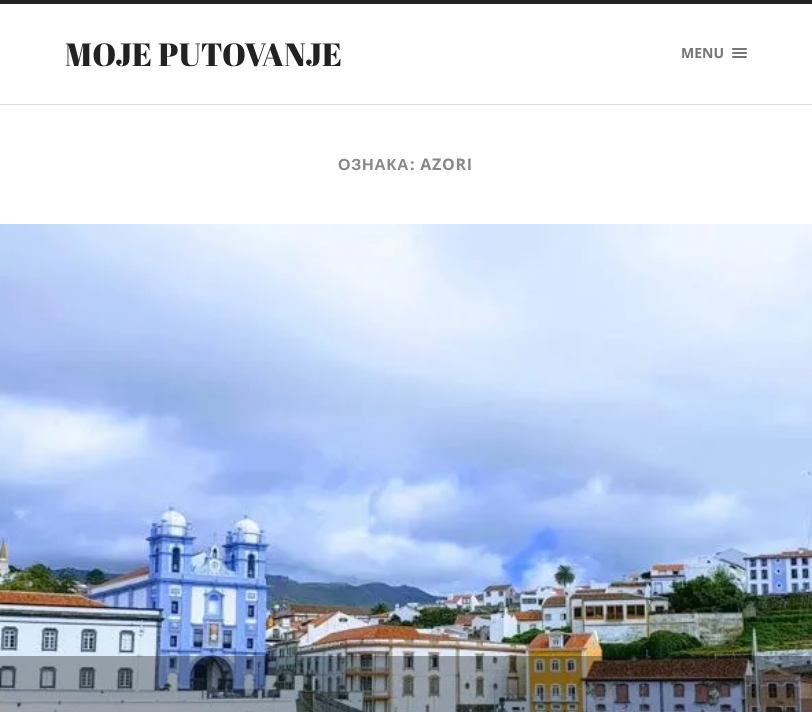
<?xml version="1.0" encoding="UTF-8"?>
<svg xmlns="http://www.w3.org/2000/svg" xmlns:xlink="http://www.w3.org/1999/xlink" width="812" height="712">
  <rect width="100%" height="100%" fill="#ffffff" />
  <rect width="812" height="4" fill="#222222" />
  <rect x="732" y="48" width="15" height="2" rx="1" fill="#767676" />
  <rect x="732" y="52" width="15" height="2" rx="1" fill="#767676" />
  <rect x="732" y="56" width="15" height="2" rx="1" fill="#767676" />
  <rect y="104" width="812" height="1" fill="#dddddd" />
  <image x="0" y="224" width="812" height="488" xlink:href="image1.png" />
  <rect y="656" width="812" height="56" fill="#111111" fill-opacity="0.35" />
  <text x="65" y="66" style="font-family: Abril Fatface; font-size: 32px; letter-spacing: 0.25px; fill: #222222">MOJE PUTOVANJE</text>
  <text x="681" y="58" style="font-family: Open Sans; font-size: 14px; font-weight: bold; fill: #767676">MENU</text>
  <text x="338" y="170" style="font-family: Liberation Sans; font-size: 16px; font-weight: bold; letter-spacing: 0.75px; fill: #888888">ОЗНАКА</text>
  <text x="410" y="170" style="font-family: Open Sans; font-size: 16px; font-weight: bold; letter-spacing: 0.75px; fill: #888888">: AZORI</text>
</svg>
